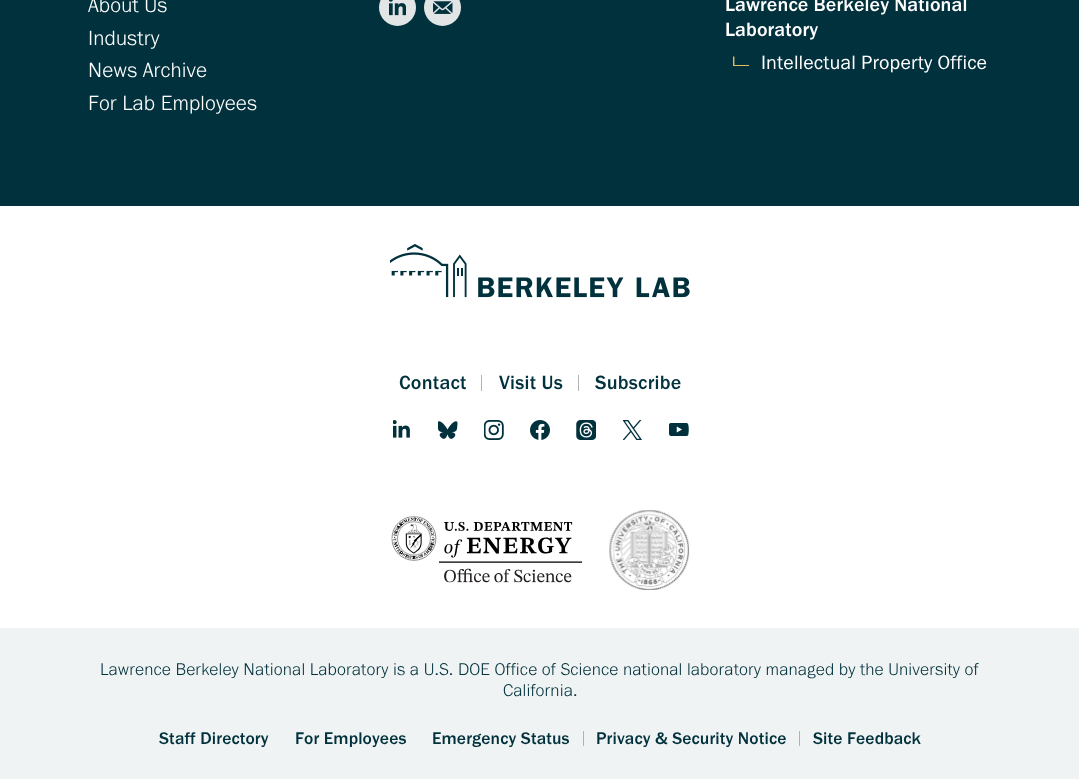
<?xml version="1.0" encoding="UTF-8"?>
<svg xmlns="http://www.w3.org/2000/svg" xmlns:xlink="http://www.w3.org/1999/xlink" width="1079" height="779">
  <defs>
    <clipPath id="clip1"><rect x="733" y="56" width="16" height="10" /></clipPath>
  </defs>
  <rect width="100%" height="100%" fill="#ffffff" />
  <rect width="1079" height="206" fill="#00313c" />
  <circle cx="397.5" cy="7.5" r="18.5" fill="#e2e5e5" />
  <image x="389" y="0" width="17" height="16" xlink:href="image1.png" />
  <circle cx="442.5" cy="7.5" r="18.5" fill="#e2e5e5" />
  <image x="433" y="1" width="20" height="13" xlink:href="image2.png" />
  <g clip-path="url(#clip1)">
    <path d="M 733.5 56.5 v 9.5 h 16" fill="none" stroke="#eabb5b" stroke-width="1.8" />
  </g>
  <image x="390" y="244" width="300" height="54" xlink:href="image3.png" />
  <rect x="481" y="375" width="1" height="16" fill="#b1b3b3" />
  <rect x="578" y="375" width="1" height="16" fill="#b1b3b3" />
  <image x="393" y="420" width="17" height="18" xlink:href="image4.png" />
  <image x="438" y="421" width="20" height="18" xlink:href="image5.png" />
  <image x="484" y="420" width="20" height="20" xlink:href="image6.png" />
  <image x="530" y="420" width="20" height="20" xlink:href="image7.png" />
  <image x="576" y="420" width="20" height="20" xlink:href="image8.png" />
  <image x="623" y="420" width="19" height="20" xlink:href="image9.png" />
  <image x="669" y="423" width="20" height="13" xlink:href="image10.png" />
  <image x="391" y="516" width="192" height="67" xlink:href="image11.png" />
  <image x="609" y="510" width="81" height="80" xlink:href="image12.png" />
  <rect y="628" width="1079" height="151" fill="#f0f3f3" />
  <rect x="583" y="731" width="1" height="15" fill="#b1b3b3" />
  <rect x="799" y="731" width="1" height="15" fill="#b1b3b3" />
  <text x="88" y="12" style="font-family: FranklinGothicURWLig; font-size: 21.25px; letter-spacing: 0.12px; fill: #ffffff">About Us</text>
  <text x="88" y="45" style="font-family: FranklinGothicURWLig; font-size: 21.25px; letter-spacing: 0.12px; fill: #ffffff">Industry</text>
  <text x="88" y="77" style="font-family: FranklinGothicURWLig; font-size: 21.25px; letter-spacing: 0.12px; fill: #ffffff">News Archive</text>
  <text x="88" y="110" style="font-family: FranklinGothicURWLig; font-size: 21.25px; letter-spacing: 0.12px; fill: #ffffff">For Lab Employees</text>
  <text x="725" y="11" style="font-family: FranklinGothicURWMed; font-size: 20px; letter-spacing: 0.12px; fill: #ffffff">Lawrence Berkeley National</text>
  <text x="725" y="36" style="font-family: FranklinGothicURWMed; font-size: 20px; letter-spacing: 0.12px; fill: #ffffff">Laboratory</text>
  <text x="761" y="69" style="font-family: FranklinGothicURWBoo; font-size: 20px; letter-spacing: 0.12px; fill: #ffffff">Intellectual Property Office</text>
  <text x="399" y="389" style="font-family: FranklinGothicURWMed; font-size: 20px; letter-spacing: 0.25px; fill: #00313c">Contact</text>
  <text x="499" y="389" style="font-family: FranklinGothicURWMed; font-size: 20px; letter-spacing: 0.25px; fill: #00313c">Visit Us</text>
  <text x="595" y="389" style="font-family: FranklinGothicURWMed; font-size: 20px; letter-spacing: 0.25px; fill: #00313c">Subscribe</text>
  <text x="100" y="675" style="font-family: FranklinGothicURWLig; font-size: 17.5px; letter-spacing: 0.12px; fill: #00313c">Lawrence Berkeley National Laboratory is a U.S. DOE Office of Science national laboratory managed by the University of</text>
  <text x="503" y="696" style="font-family: FranklinGothicURWLig; font-size: 17.5px; letter-spacing: 0.12px; fill: #00313c">California.</text>
  <text x="159" y="744" style="font-family: FranklinGothicURWMed; font-size: 17.5px; letter-spacing: 0.12px; fill: #00313c">Staff Directory</text>
  <text x="295" y="744" style="font-family: FranklinGothicURWMed; font-size: 17.5px; letter-spacing: 0.12px; fill: #00313c">For Employees</text>
  <text x="432" y="744" style="font-family: FranklinGothicURWMed; font-size: 17.5px; letter-spacing: 0.12px; fill: #00313c">Emergency Status</text>
  <text x="596" y="744" style="font-family: FranklinGothicURWMed; font-size: 17.5px; letter-spacing: 0.12px; fill: #00313c">Privacy &amp; Security Notice</text>
  <text x="813" y="744" style="font-family: FranklinGothicURWMed; font-size: 17.5px; letter-spacing: 0.12px; fill: #00313c">Site Feedback</text>
</svg>
